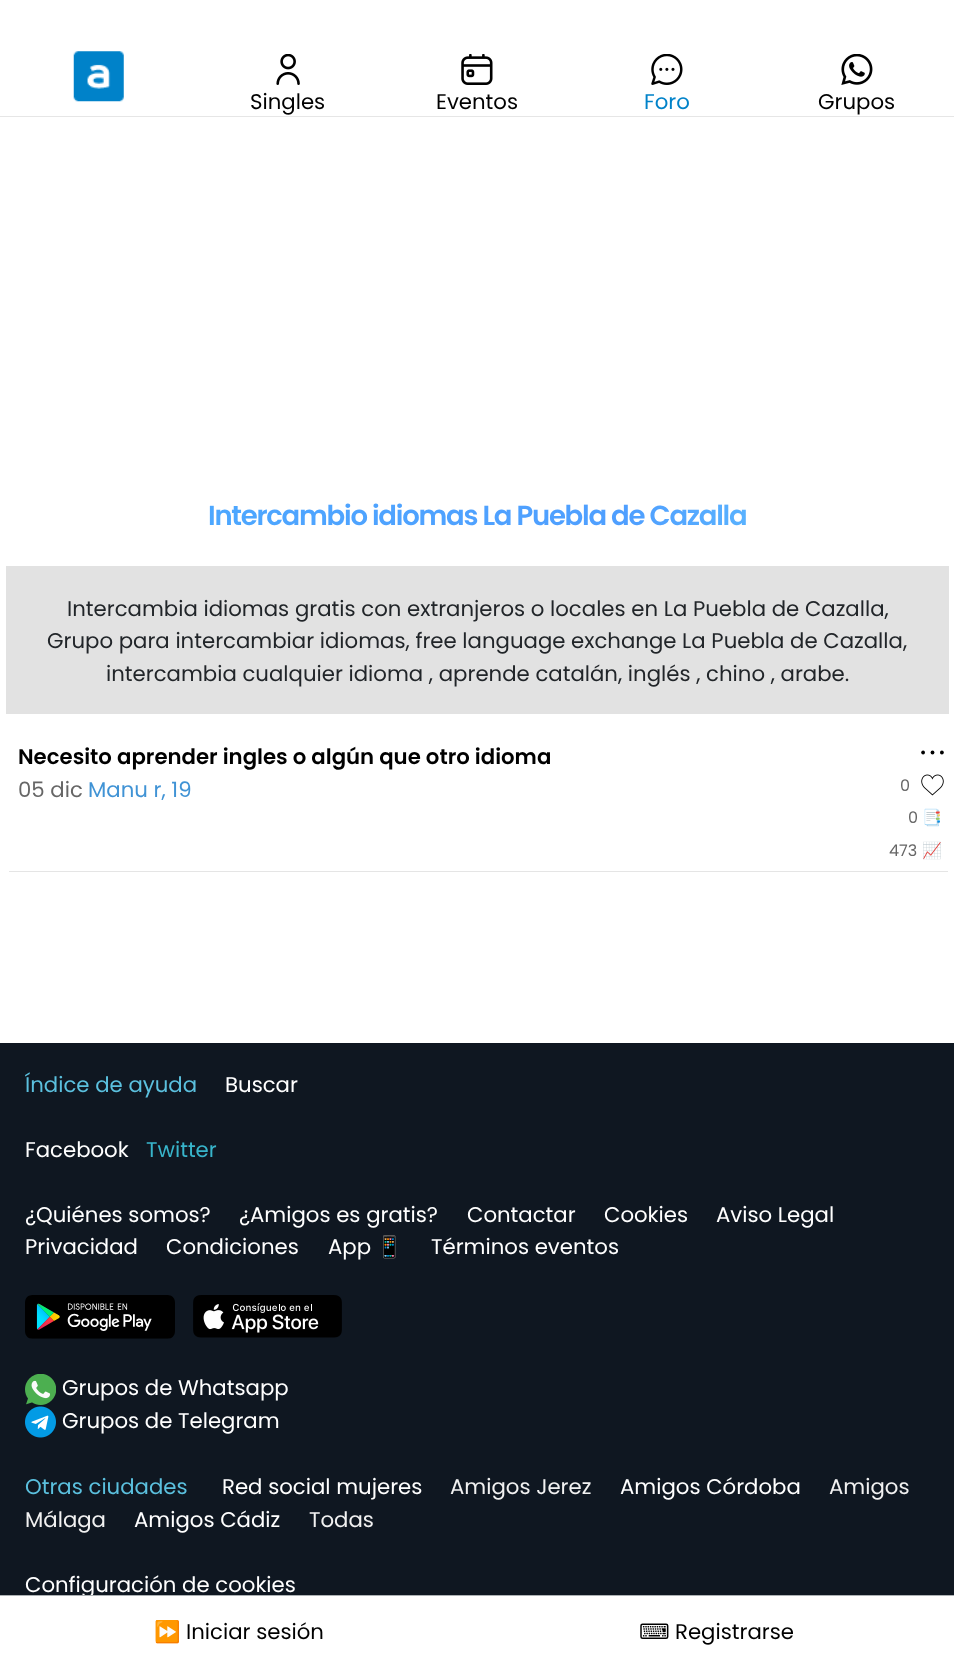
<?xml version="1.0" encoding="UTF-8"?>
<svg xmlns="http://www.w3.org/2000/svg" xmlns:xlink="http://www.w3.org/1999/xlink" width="954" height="1663">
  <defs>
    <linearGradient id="g1" gradientUnits="userSpaceOnUse" x1="6.2" y1="515" x2="949" y2="515"><stop offset="0" stop-color="#49aeff" /><stop offset="0.33" stop-color="#4ea4ff" /><stop offset="0.66" stop-color="#4f9fff" /><stop offset="1" stop-color="#6ad1ff" /></linearGradient>
  </defs>
  <rect width="100%" height="100%" fill="#ffffff" />
  <rect y="116" width="954" height="1" fill="#e6e6e6" />
  <image x="73" y="51" width="51" height="51" xlink:href="image1.png" />
  <image x="276" y="54" width="24" height="31" xlink:href="image2.png" />
  <image x="461" y="54" width="32" height="31" xlink:href="image3.png" />
  <image x="651" y="54" width="32" height="31" xlink:href="image4.png" />
  <image x="841" y="54" width="32" height="31" xlink:href="image5.png" />
  <rect x="6" y="566" width="943" height="148" fill="#e2e2e2" />
  <rect x="9" y="871" width="939" height="1" fill="#e5e5e5" />
  <circle cx="923.1" cy="752.5" r="1.9" fill="#000000" />
  <circle cx="932.5" cy="752.5" r="1.9" fill="#000000" />
  <circle cx="941.9" cy="752.5" r="1.9" fill="#000000" />
  <image x="921" y="774" width="23" height="22" xlink:href="image6.png" />
  <rect y="1043" width="954" height="552" fill="#0f1721" />
  <image x="25" y="1295" width="150" height="44" xlink:href="image7.png" />
  <image x="193" y="1295" width="149" height="43" xlink:href="image8.png" />
  <image x="25" y="1374" width="31" height="31" xlink:href="image9.png" />
  <image x="25" y="1406" width="31" height="32" xlink:href="image10.png" />
  <text x="250" y="109" style="font-family: Poppins; font-size: 21.25px; fill: #000000">Singles</text>
  <text x="436" y="109" style="font-family: Poppins; font-size: 21.25px; fill: #000000">Eventos</text>
  <text x="644" y="109" style="font-family: Poppins; font-size: 21.25px; fill: #0082c9">Foro</text>
  <text x="818" y="109" style="font-family: Poppins; font-size: 21.25px; fill: #000000">Grupos</text>
  <text x="208" y="525" style="font-family: Poppins; font-size: 27.5px; font-weight: 600; letter-spacing: -1.25px; fill: url(#g1)">Intercambio idiomas La Puebla de Cazalla</text>
  <text x="67" y="616" style="font-family: Poppins; font-size: 21.25px; fill: #212529">Intercambia idiomas gratis con extranjeros o locales en La Puebla de Cazalla,</text>
  <text x="47" y="648" style="font-family: Poppins; font-size: 21.25px; fill: #212529">Grupo para intercambiar idiomas, free language exchange La Puebla de Cazalla,</text>
  <text x="106" y="681" style="font-family: Poppins; font-size: 21.25px; fill: #212529">intercambia cualquier idioma , aprende catalán, inglés , chino , arabe.</text>
  <text x="18" y="764" style="font-family: Poppins; font-size: 21.25px; font-weight: 600; fill: #000000">Necesito aprender ingles o algún que otro idioma</text>
  <text x="18" y="797" style="font-family: Poppins; font-size: 21.25px; fill: #666666">05 dic</text>
  <text x="88" y="797" style="font-family: Poppins; font-size: 21.25px; fill: #4093d5">Manu r, 19</text>
  <text x="900" y="791" style="font-family: Poppins; font-size: 16px; fill: #666666">0</text>
  <text x="908" y="823" style="font-family: Poppins; font-size: 16px; fill: #666666">0</text>
  <text x="922" y="823" style="font-family: Noto Color Emoji; font-size: 16px; fill: #666666">📑</text>
  <text x="889" y="856" style="font-family: Poppins; font-size: 16px; fill: #666666">473</text>
  <text x="922" y="856" style="font-family: Noto Color Emoji; font-size: 16px; fill: #666666">📈</text>
  <text x="25" y="1092" style="font-family: Poppins; font-size: 21.25px; fill: #5bc0de">Índice de ayuda</text>
  <text x="225" y="1092" style="font-family: Poppins; font-size: 21.25px; fill: #ffffff">Buscar</text>
  <text x="25" y="1157" style="font-family: Poppins; font-size: 21.25px; fill: #ffffff">Facebook</text>
  <text x="146" y="1157" style="font-family: Poppins; font-size: 21.25px; fill: #38b5cb">Twitter</text>
  <text x="25" y="1222" style="font-family: Poppins; font-size: 21.25px; fill: #ffffff">¿Quiénes somos?</text>
  <text x="239" y="1222" style="font-family: Poppins; font-size: 21.25px; fill: #ffffff">¿Amigos es gratis?</text>
  <text x="467" y="1222" style="font-family: Poppins; font-size: 21.25px; fill: #ffffff">Contactar</text>
  <text x="604" y="1222" style="font-family: Poppins; font-size: 21.25px; fill: #ffffff">Cookies</text>
  <text x="716" y="1222" style="font-family: Poppins; font-size: 21.25px; fill: #ffffff">Aviso Legal</text>
  <text x="25" y="1254" style="font-family: Poppins; font-size: 21.25px; fill: #ffffff">Privacidad</text>
  <text x="166" y="1254" style="font-family: Poppins; font-size: 21.25px; fill: #ffffff">Condiciones</text>
  <text x="328" y="1254" style="font-family: Poppins; font-size: 21.25px; fill: #ffffff">App</text>
  <text x="376" y="1254" style="font-family: Noto Color Emoji; font-size: 21.25px; fill: #ffffff">📱</text>
  <text x="431" y="1254" style="font-family: Poppins; font-size: 21.25px; fill: #ffffff">Términos eventos</text>
  <text x="62" y="1395" style="font-family: Poppins; font-size: 21.25px; fill: #ffffff">Grupos de Whatsapp</text>
  <text x="62" y="1428" style="font-family: Poppins; font-size: 21.25px; fill: #ffffff">Grupos de Telegram</text>
  <text x="25" y="1494" style="font-family: Poppins; font-size: 21.25px; fill: #5bc0de">Otras ciudades</text>
  <text x="222" y="1494" style="font-family: Poppins; font-size: 21.25px; fill: #ffffff">Red social mujeres</text>
  <text x="450" y="1494" style="font-family: Poppins; font-size: 21.25px; fill: #f1f1f1">Amigos Jerez</text>
  <text x="620" y="1494" style="font-family: Poppins; font-size: 21.25px; fill: #ffffff">Amigos Córdoba</text>
  <text x="829" y="1494" style="font-family: Poppins; font-size: 21.25px; fill: #f1f1f1">Amigos</text>
  <text x="25" y="1527" style="font-family: Poppins; font-size: 21.25px; fill: #f1f1f1">Málaga</text>
  <text x="134" y="1527" style="font-family: Poppins; font-size: 21.25px; fill: #ffffff">Amigos Cádiz</text>
  <text x="309" y="1527" style="font-family: Poppins; font-size: 21.25px; fill: #f1f1f1">Todas</text>
  <text x="25" y="1592" style="font-family: Poppins; font-size: 21.25px; fill: #ffffff">Configuración de cookies</text>
  <rect y="1595" width="954" height="1" fill="#acb1b4" />
  <text x="154" y="1639" style="font-family: Noto Color Emoji; font-size: 21.25px; fill: #000000">⏩</text>
  <text x="186" y="1639" style="font-family: Poppins; font-size: 21.25px; fill: #000000">Iniciar sesión</text>
  <text x="639" y="1639" style="font-family: DejaVu Sans; font-size: 21.25px; fill: #000000">⌨</text>
  <text x="675" y="1639" style="font-family: Poppins; font-size: 21.25px; fill: #000000">Registrarse</text>
</svg>
